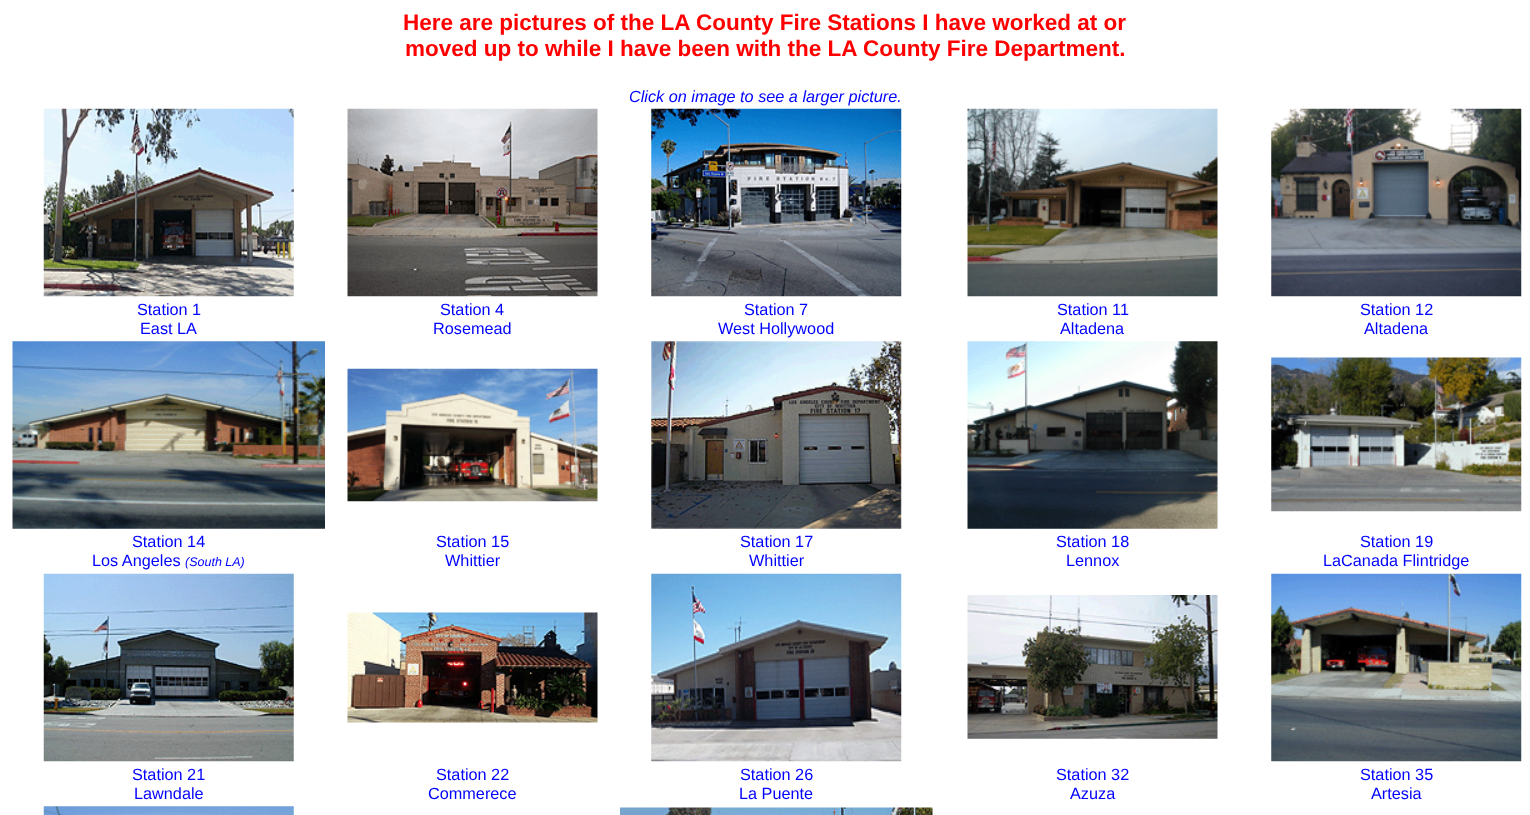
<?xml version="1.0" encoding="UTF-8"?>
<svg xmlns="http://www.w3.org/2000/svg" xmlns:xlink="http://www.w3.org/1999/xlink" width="1530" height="815">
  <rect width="100%" height="100%" fill="#ffffff" />
  <image x="43" y="108" width="251" height="189" xlink:href="image1.png" />
  <image x="347" y="108" width="251" height="189" xlink:href="image2.png" />
  <image x="651" y="108" width="251" height="189" xlink:href="image3.png" />
  <image x="967" y="108" width="251" height="189" xlink:href="image4.png" />
  <image x="1271" y="108" width="251" height="189" xlink:href="image5.png" />
  <image x="12" y="341" width="313" height="188" xlink:href="image6.png" />
  <image x="347" y="368" width="251" height="134" xlink:href="image7.png" />
  <image x="651" y="341" width="251" height="188" xlink:href="image8.png" />
  <image x="967" y="341" width="251" height="188" xlink:href="image9.png" />
  <image x="1271" y="357" width="251" height="155" xlink:href="image10.png" />
  <image x="43" y="573" width="251" height="189" xlink:href="image11.png" />
  <image x="347" y="612" width="251" height="111" xlink:href="image12.png" />
  <image x="651" y="573" width="251" height="189" xlink:href="image13.png" />
  <image x="967" y="595" width="251" height="144" xlink:href="image14.png" />
  <image x="1271" y="573" width="251" height="189" xlink:href="image15.png" />
  <image x="43" y="806" width="251" height="9" xlink:href="image16.png" />
  <image x="620" y="807" width="313" height="8" xlink:href="image17.png" />
  <text x="403" y="30" style="font-family: Liberation Sans; font-size: 22.5px; font-weight: bold; fill: #ff0000">Here are pictures of the LA County Fire Stations I have worked at or</text>
  <text x="405" y="56" style="font-family: Liberation Sans; font-size: 22.5px; font-weight: bold; fill: #ff0000">moved up to while I have been with the LA County Fire Department.</text>
  <text x="629" y="102" style="font-family: Liberation Sans; font-size: 16.25px; font-style: italic; fill: #0000ff">Click on image to see a larger picture.</text>
  <text x="137" y="315" style="font-family: Liberation Sans; font-size: 16.25px; fill: #0000ff">Station 1</text>
  <text x="140" y="334" style="font-family: Liberation Sans; font-size: 16.25px; fill: #0000ff">East LA</text>
  <text x="440" y="315" style="font-family: Liberation Sans; font-size: 16.25px; fill: #0000ff">Station 4</text>
  <text x="433" y="334" style="font-family: Liberation Sans; font-size: 16.25px; fill: #0000ff">Rosemead</text>
  <text x="744" y="315" style="font-family: Liberation Sans; font-size: 16.25px; fill: #0000ff">Station 7</text>
  <text x="718" y="334" style="font-family: Liberation Sans; font-size: 16.25px; fill: #0000ff">West Hollywood</text>
  <text x="1057" y="315" style="font-family: Liberation Sans; font-size: 16.25px; fill: #0000ff">Station 11</text>
  <text x="1060" y="334" style="font-family: Liberation Sans; font-size: 16.25px; fill: #0000ff">Altadena</text>
  <text x="1360" y="315" style="font-family: Liberation Sans; font-size: 16.25px; fill: #0000ff">Station 12</text>
  <text x="1364" y="334" style="font-family: Liberation Sans; font-size: 16.25px; fill: #0000ff">Altadena</text>
  <text x="132" y="547" style="font-family: Liberation Sans; font-size: 16.25px; fill: #0000ff">Station 14</text>
  <text x="92" y="566" style="font-family: Liberation Sans; font-size: 16.25px; fill: #0000ff">Los Angeles</text>
  <text x="185" y="566" style="font-family: Liberation Sans; font-size: 12.5px; font-style: italic; fill: #0000ff">(South LA)</text>
  <text x="436" y="547" style="font-family: Liberation Sans; font-size: 16.25px; fill: #0000ff">Station 15</text>
  <text x="445" y="566" style="font-family: Liberation Sans; font-size: 16.25px; fill: #0000ff">Whittier</text>
  <text x="740" y="547" style="font-family: Liberation Sans; font-size: 16.25px; fill: #0000ff">Station 17</text>
  <text x="749" y="566" style="font-family: Liberation Sans; font-size: 16.25px; fill: #0000ff">Whittier</text>
  <text x="1056" y="547" style="font-family: Liberation Sans; font-size: 16.25px; fill: #0000ff">Station 18</text>
  <text x="1066" y="566" style="font-family: Liberation Sans; font-size: 16.25px; fill: #0000ff">Lennox</text>
  <text x="1360" y="547" style="font-family: Liberation Sans; font-size: 16.25px; fill: #0000ff">Station 19</text>
  <text x="1323" y="566" style="font-family: Liberation Sans; font-size: 16.25px; fill: #0000ff">LaCanada Flintridge</text>
  <text x="132" y="780" style="font-family: Liberation Sans; font-size: 16.25px; fill: #0000ff">Station 21</text>
  <text x="134" y="799" style="font-family: Liberation Sans; font-size: 16.25px; fill: #0000ff">Lawndale</text>
  <text x="436" y="780" style="font-family: Liberation Sans; font-size: 16.25px; fill: #0000ff">Station 22</text>
  <text x="428" y="799" style="font-family: Liberation Sans; font-size: 16.25px; fill: #0000ff">Commerece</text>
  <text x="740" y="780" style="font-family: Liberation Sans; font-size: 16.25px; fill: #0000ff">Station 26</text>
  <text x="739" y="799" style="font-family: Liberation Sans; font-size: 16.25px; fill: #0000ff">La Puente</text>
  <text x="1056" y="780" style="font-family: Liberation Sans; font-size: 16.25px; fill: #0000ff">Station 32</text>
  <text x="1070" y="799" style="font-family: Liberation Sans; font-size: 16.25px; fill: #0000ff">Azuza</text>
  <text x="1360" y="780" style="font-family: Liberation Sans; font-size: 16.25px; fill: #0000ff">Station 35</text>
  <text x="1371" y="799" style="font-family: Liberation Sans; font-size: 16.25px; fill: #0000ff">Artesia</text>
</svg>
